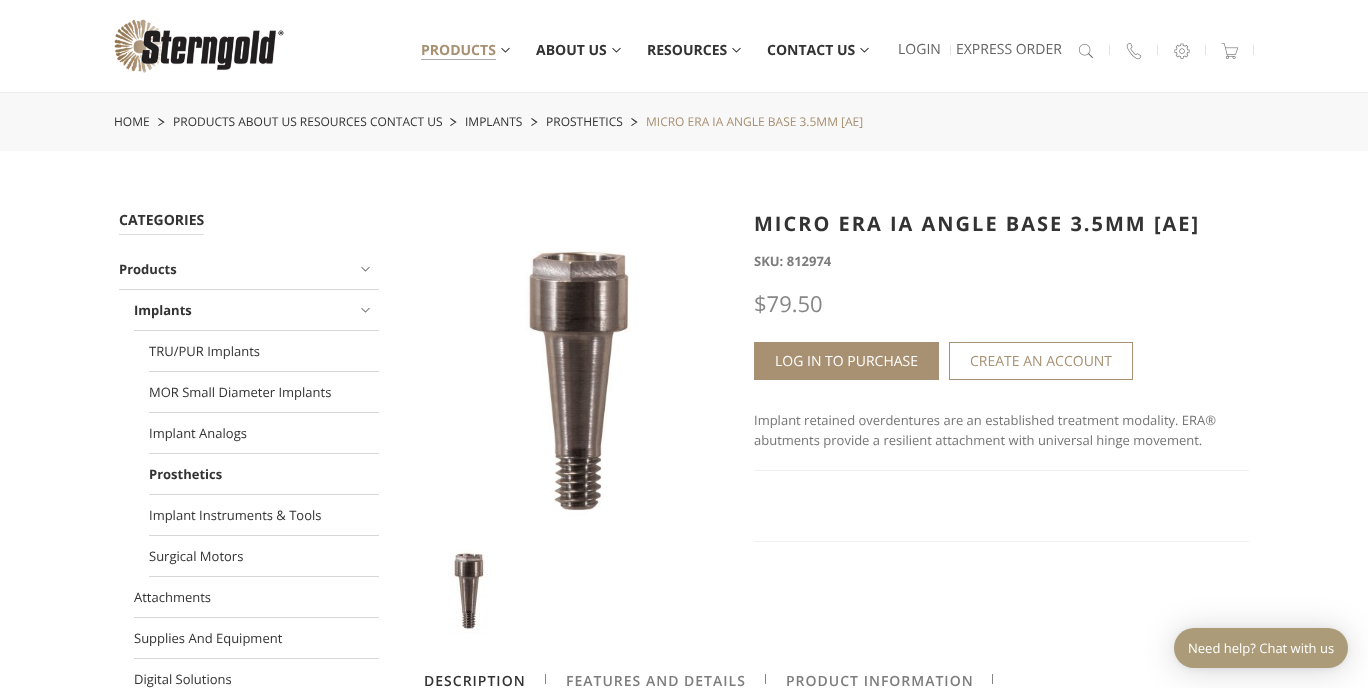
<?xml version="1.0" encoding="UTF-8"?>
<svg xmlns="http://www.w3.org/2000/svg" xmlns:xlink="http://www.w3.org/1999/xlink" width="1368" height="688">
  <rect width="100%" height="100%" fill="#ffffff" />
  <rect y="92" width="1368" height="1" fill="#ebebeb" />
  <image x="114" y="19" width="170" height="54" xlink:href="image1.png" />
  <rect x="421" y="59" width="75" height="1" fill="#aaaaaa" />
  <image x="501" y="47" width="9" height="6" xlink:href="image2.png" />
  <image x="612" y="47" width="9" height="6" xlink:href="image2.png" />
  <image x="732" y="47" width="9" height="6" xlink:href="image2.png" />
  <image x="860" y="47" width="9" height="6" xlink:href="image2.png" />
  <rect x="950" y="45" width="1" height="10" fill="#e3e3e3" />
  <image x="1078" y="44" width="15" height="15" xlink:href="image3.png" />
  <rect x="1109" y="45" width="1" height="10" fill="#e3e3e3" />
  <image x="1126" y="43" width="16" height="17" xlink:href="image4.png" />
  <rect x="1157" y="45" width="1" height="10" fill="#e3e3e3" />
  <image x="1174" y="43" width="16" height="16" xlink:href="image5.png" />
  <rect x="1205" y="45" width="1" height="10" fill="#e3e3e3" />
  <image x="1221" y="43" width="18" height="16" xlink:href="image6.png" />
  <rect x="1253" y="45" width="1" height="10" fill="#e3e3e3" />
  <rect y="93" width="1368" height="58" fill="#f8f8f8" />
  <image x="158" y="118" width="7" height="8" xlink:href="image7.png" />
  <image x="450" y="118" width="7" height="8" xlink:href="image7.png" />
  <image x="531" y="118" width="7" height="8" xlink:href="image7.png" />
  <image x="631" y="118" width="7" height="8" xlink:href="image7.png" />
  <rect x="119" y="234" width="85" height="1" fill="#dddddd" />
  <rect x="119" y="289" width="260" height="1" fill="#d7d7d7" />
  <image x="361" y="266" width="9" height="6" xlink:href="image8.png" />
  <rect x="134" y="330" width="245" height="1" fill="#d7d7d7" />
  <image x="361" y="307" width="9" height="6" xlink:href="image8.png" />
  <rect x="149" y="371" width="230" height="1" fill="#d7d7d7" />
  <rect x="149" y="412" width="230" height="1" fill="#d7d7d7" />
  <rect x="149" y="453" width="230" height="1" fill="#d7d7d7" />
  <rect x="149" y="494" width="230" height="1" fill="#d7d7d7" />
  <rect x="149" y="535" width="230" height="1" fill="#d7d7d7" />
  <rect x="149" y="576" width="230" height="1" fill="#d7d7d7" />
  <rect x="134" y="617" width="245" height="1" fill="#d7d7d7" />
  <rect x="134" y="658" width="245" height="1" fill="#d7d7d7" />
  <image x="525" y="250" width="106" height="265" xlink:href="image9.png" />
  <image x="448" y="550" width="40" height="84" xlink:href="image10.png" />
  <rect x="754" y="342" width="185" height="38" fill="#a89072" />
  <rect x="949.5" y="342.5" width="183" height="37" fill="none" stroke="#a89072" />
  <rect x="754" y="470" width="495" height="1" fill="#f0f0f0" />
  <rect x="754" y="541" width="495" height="1" fill="#f0f0f0" />
  <rect x="545" y="674" width="1" height="10" fill="#878787" />
  <rect x="765" y="674" width="1" height="10" fill="#878787" />
  <rect x="992" y="674" width="1" height="10" fill="#878787" />
  <rect x="1174" y="630" width="174" height="40" rx="20" fill="#000000" fill-opacity="0.16" filter="blur(16px)" />
  <rect x="1174" y="629" width="174" height="40" rx="20" fill="#000000" fill-opacity="0.06" filter="blur(3px)" />
  <rect x="1174" y="628" width="174" height="40" rx="20" fill="#ab9b78" />
  <text x="421" y="55" style="font-family: Open Sans; font-size: 14px; font-weight: bold; fill: #a89072">PRODUCTS</text>
  <text x="536" y="55" style="font-family: Open Sans; font-size: 14px; font-weight: bold; fill: #333333">ABOUT US</text>
  <text x="647" y="55" style="font-family: Open Sans; font-size: 14px; font-weight: bold; fill: #333333">RESOURCES</text>
  <text x="767" y="55" style="font-family: Open Sans; font-size: 14px; font-weight: bold; fill: #333333">CONTACT US</text>
  <text x="898" y="54" style="font-family: Open Sans; font-size: 14px; fill: #636363">LOGIN</text>
  <text x="956" y="54" style="font-family: Open Sans; font-size: 14px; fill: #636363">EXPRESS ORDER</text>
  <text x="114" y="126" style="font-family: Open Sans; font-size: 12px; fill: #333333">HOME</text>
  <text x="173" y="126" style="font-family: Open Sans; font-size: 12px; fill: #333333">PRODUCTS ABOUT US RESOURCES CONTACT US</text>
  <text x="465" y="126" style="font-family: Open Sans; font-size: 12px; fill: #333333">IMPLANTS</text>
  <text x="546" y="126" style="font-family: Open Sans; font-size: 12px; fill: #333333">PROSTHETICS</text>
  <text x="646" y="126" style="font-family: Open Sans; font-size: 12px; fill: #a89072">MICRO ERA IA ANGLE BASE 3.5MM [AE]</text>
  <text x="119" y="225" style="font-family: Open Sans; font-size: 14px; font-weight: bold; fill: #333333">CATEGORIES</text>
  <text x="119" y="274" style="font-family: Open Sans; font-size: 13px; font-weight: bold; fill: #333333">Products</text>
  <text x="134" y="315" style="font-family: Open Sans; font-size: 13px; font-weight: bold; fill: #333333">Implants</text>
  <text x="149" y="356" style="font-family: Open Sans; font-size: 13px; fill: #333333">TRU/PUR Implants</text>
  <text x="149" y="397" style="font-family: Open Sans; font-size: 13px; fill: #333333">MOR Small Diameter Implants</text>
  <text x="149" y="438" style="font-family: Open Sans; font-size: 13px; fill: #333333">Implant Analogs</text>
  <text x="149" y="479" style="font-family: Open Sans; font-size: 13px; font-weight: bold; fill: #333333">Prosthetics</text>
  <text x="149" y="520" style="font-family: Open Sans; font-size: 13px; fill: #333333">Implant Instruments &amp; Tools</text>
  <text x="149" y="561" style="font-family: Open Sans; font-size: 13px; fill: #333333">Surgical Motors</text>
  <text x="134" y="602" style="font-family: Open Sans; font-size: 13px; fill: #333333">Attachments</text>
  <text x="134" y="643" style="font-family: Open Sans; font-size: 13px; fill: #333333">Supplies And Equipment</text>
  <text x="134" y="684" style="font-family: Open Sans; font-size: 13px; fill: #333333">Digital Solutions</text>
  <text x="754" y="231" style="font-family: Open Sans; font-size: 20px; font-weight: bold; letter-spacing: 2px; fill: #333333">MICRO ERA IA ANGLE BASE 3.5MM [AE]</text>
  <text x="754" y="266" style="font-family: Open Sans; font-size: 13px; font-weight: bold; fill: #7d7d7d">SKU: 812974</text>
  <text x="754" y="312" style="font-family: Open Sans; font-size: 22px; fill: #878787">$79.50</text>
  <text x="775" y="366" style="font-family: Open Sans; font-size: 14px; fill: #ffffff">LOG IN TO PURCHASE</text>
  <text x="970" y="366" style="font-family: Open Sans; font-size: 14px; fill: #a89072">CREATE AN ACCOUNT</text>
  <text x="754" y="425" style="font-family: Open Sans; font-size: 13px; fill: #757575">Implant retained overdentures are an established treatment modality. ERA®</text>
  <text x="754" y="445" style="font-family: Open Sans; font-size: 13px; fill: #757575">abutments provide a resilient attachment with universal hinge movement.</text>
  <text x="424" y="686" style="font-family: Open Sans; font-size: 14px; font-weight: 600; letter-spacing: 1px; fill: #333333">DESCRIPTION</text>
  <text x="566" y="686" style="font-family: Open Sans; font-size: 14px; font-weight: 600; letter-spacing: 1px; fill: #7d7d7d">FEATURES AND DETAILS</text>
  <text x="786" y="686" style="font-family: Open Sans; font-size: 14px; font-weight: 600; letter-spacing: 1px; fill: #7d7d7d">PRODUCT INFORMATION</text>
  <text x="1188" y="653" style="font-family: Open Sans; font-size: 13px; fill: #ffffff">Need help? Chat with us</text>
</svg>
